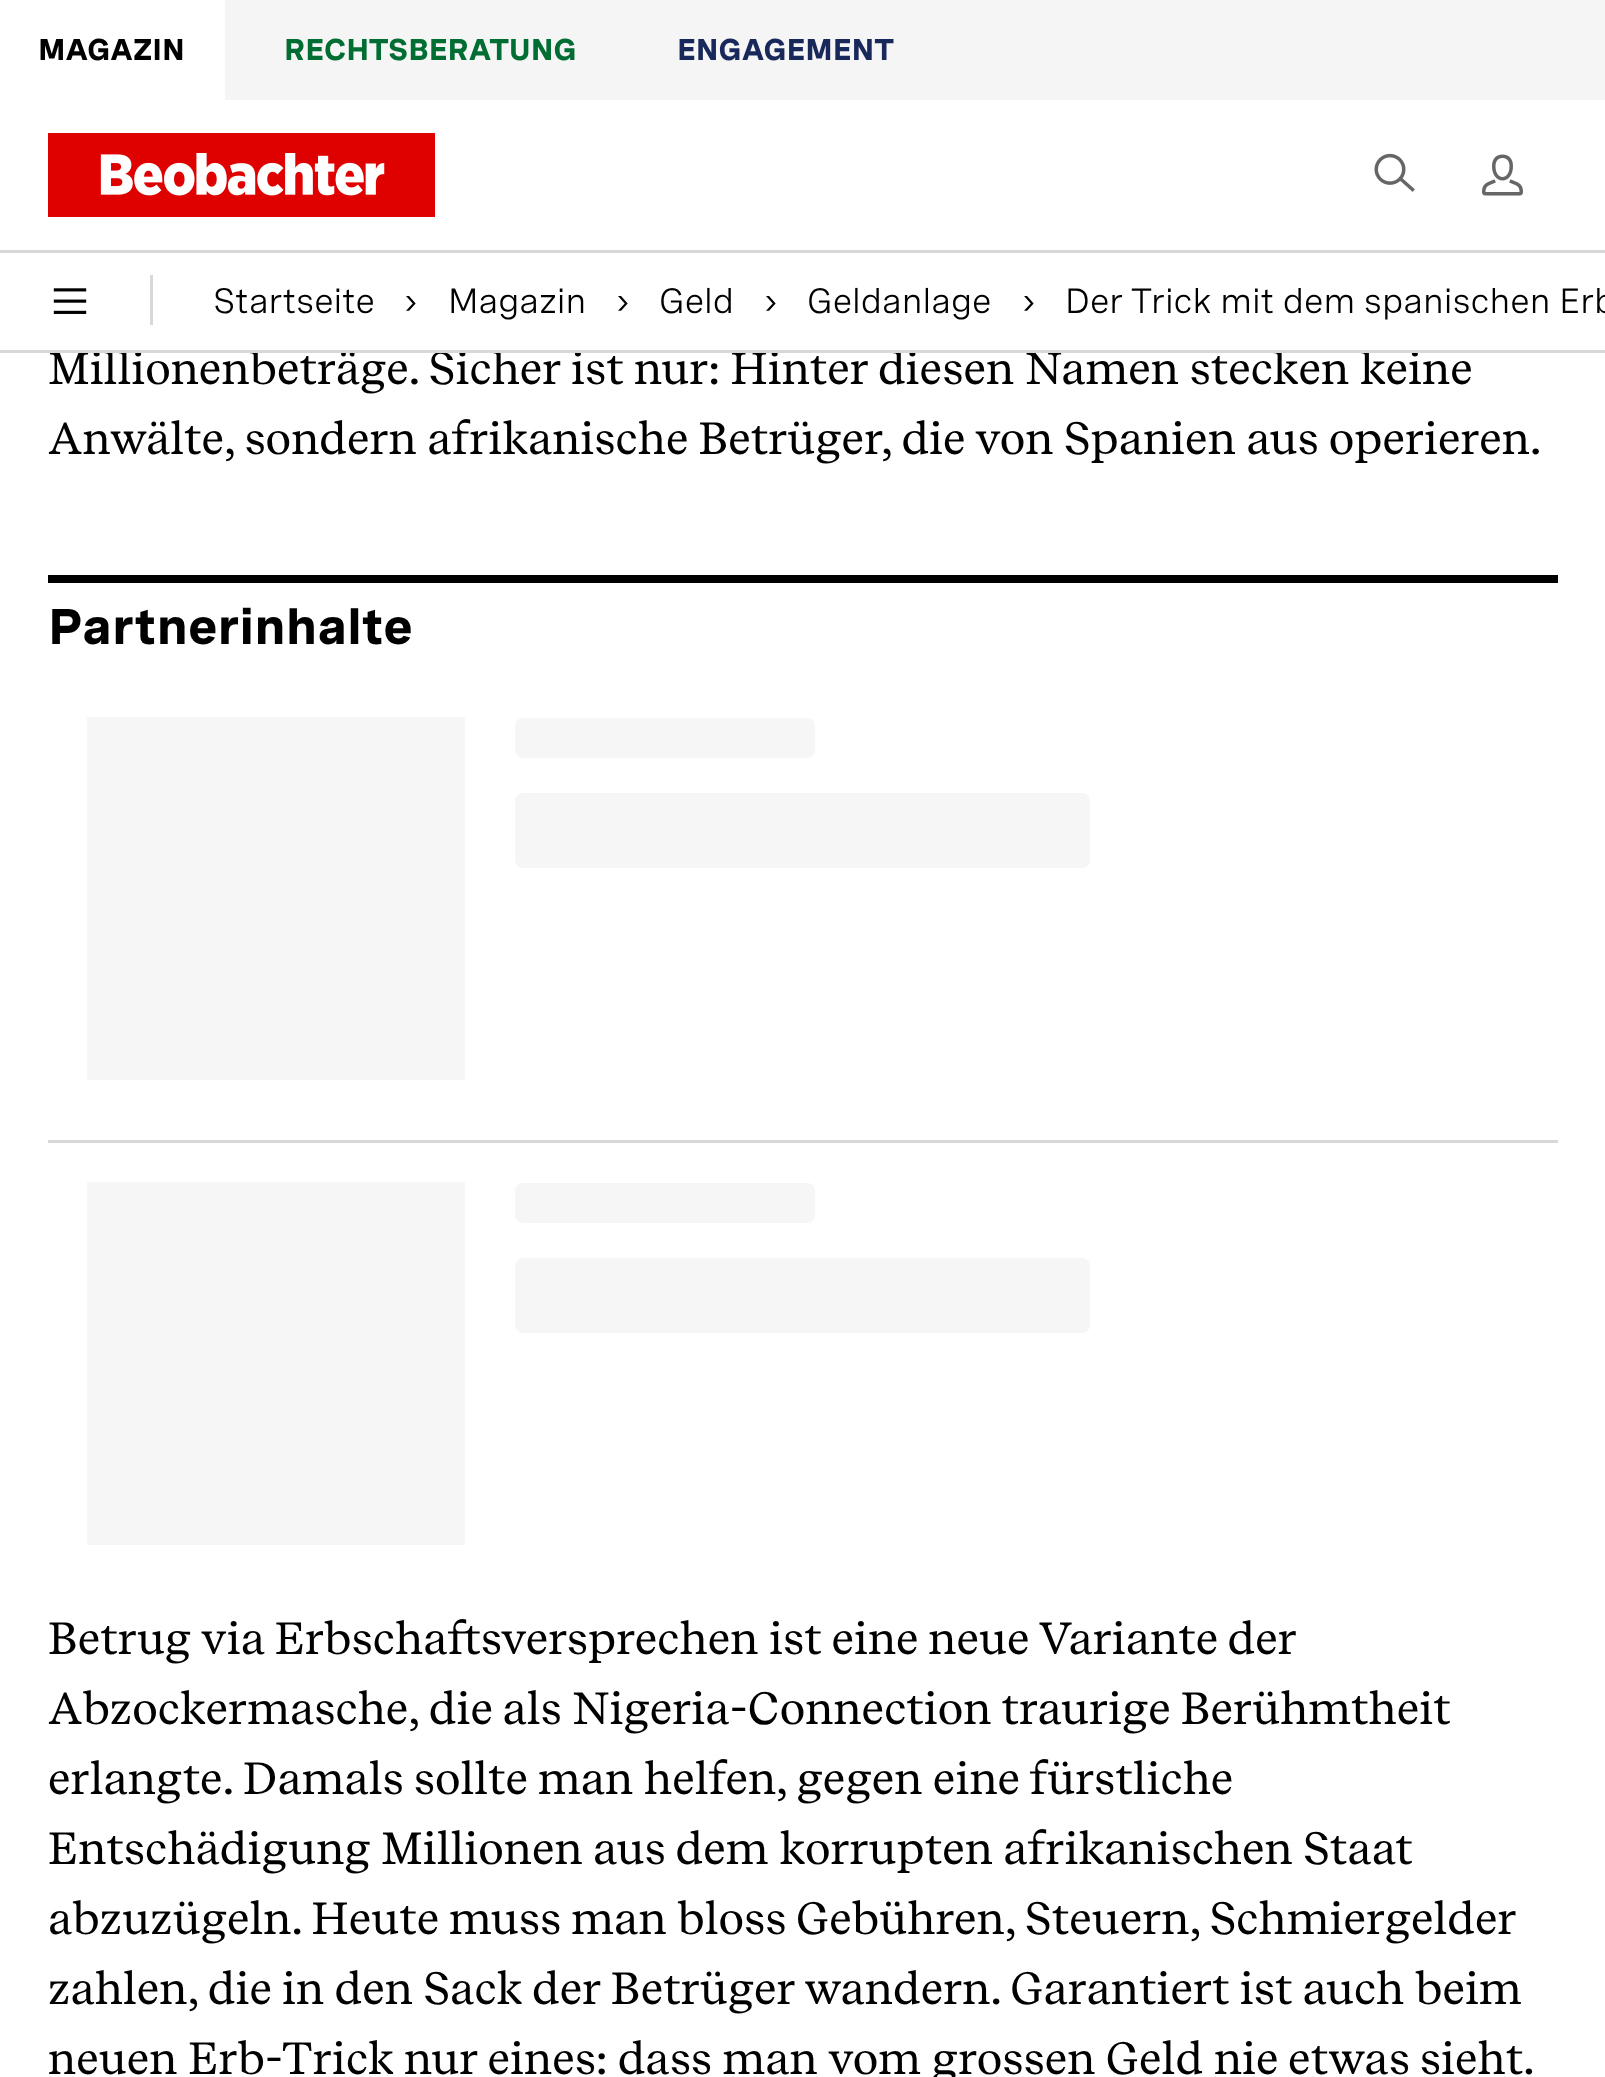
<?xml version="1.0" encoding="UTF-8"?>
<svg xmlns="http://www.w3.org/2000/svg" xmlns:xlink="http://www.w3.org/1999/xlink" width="1605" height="2077">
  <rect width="100%" height="100%" fill="#ffffff" />
  <rect x="225" width="1380" height="100" fill="#f5f5f5" />
  <image x="48" y="133" width="387" height="84" xlink:href="image1.png" />
  <image x="1374" y="153" width="41" height="39" xlink:href="image2.png" />
  <image x="1482" y="154" width="41" height="42" xlink:href="image3.png" />
  <rect y="250" width="1605" height="3" fill="#d8d8d8" />
  <image x="53" y="288" width="34" height="26" xlink:href="image4.png" />
  <rect x="150" y="275" width="3" height="50" fill="#d8d8d8" />
  <rect x="48" y="575" width="1510" height="8" fill="#000000" />
  <rect x="48" y="1140" width="1510" height="3" fill="#d8d8d8" />
  <rect x="87" y="717" width="378" height="363" fill="#f6f6f6" />
  <rect x="515" y="718" width="300" height="40" rx="8" fill="#f6f6f6" />
  <rect x="515" y="793" width="575" height="75" rx="8" fill="#f6f6f6" />
  <rect x="87" y="1182" width="378" height="363" fill="#f6f6f6" />
  <rect x="515" y="1183" width="300" height="40" rx="8" fill="#f6f6f6" />
  <rect x="515" y="1258" width="575" height="75" rx="8" fill="#f6f6f6" />
  <text x="38" y="60" style="font-family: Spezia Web; font-size: 30px; font-weight: bold; fill: #000000">MAGAZIN</text>
  <text x="284" y="60" style="font-family: Spezia Web; font-size: 30px; font-weight: bold; fill: #006e32">RECHTSBERATUNG</text>
  <text x="677" y="60" style="font-family: Spezia Web; font-size: 30px; font-weight: bold; fill: #19285b">ENGAGEMENT</text>
  <text x="213" y="313" style="font-family: Spezia Web; font-size: 35px; fill: #000000">Startseite</text>
  <text x="404" y="313" style="font-family: Spezia Web; font-size: 35px; fill: #000000">›</text>
  <text x="448" y="313" style="font-family: Spezia Web; font-size: 35px; fill: #000000">Magazin</text>
  <text x="616" y="313" style="font-family: Spezia Web; font-size: 35px; fill: #000000">›</text>
  <text x="659" y="313" style="font-family: Spezia Web; font-size: 35px; fill: #000000">Geld</text>
  <text x="764" y="313" style="font-family: Spezia Web; font-size: 35px; fill: #000000">›</text>
  <text x="807" y="313" style="font-family: Spezia Web; font-size: 35px; fill: #000000">Geldanlage</text>
  <text x="1022" y="313" style="font-family: Spezia Web; font-size: 35px; fill: #000000">›</text>
  <text x="1065" y="313" style="font-family: Spezia Web; font-size: 35px; fill: #000000">Der Trick mit dem spanischen Erb</text>
  <text x="48" y="384" style="font-family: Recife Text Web; font-size: 45px; fill: #000000">Millionenbeträge. Sicher ist nur: Hinter diesen Namen stecken keine</text>
  <rect y="350" width="1605" height="3" fill="#d8d8d8" />
  <rect x="125" y="349" width="1243" height="1" fill="#ffffff" />
  <text x="48" y="454" style="font-family: Recife Text Web; font-size: 45px; fill: #000000">Anwälte, sondern afrikanische Betrüger, die von Spanien aus operieren.</text>
  <text x="48" y="644" style="font-family: Spezia Web; font-size: 50px; font-weight: bold; fill: #000000">Partnerinhalte</text>
  <text x="48" y="1654" word-spacing="-0.25" style="font-family: Recife Text Web; font-size: 45px; fill: #000000">Betrug via Erbschaftsversprechen ist eine neue Variante der</text>
  <text x="48" y="1724" style="font-family: Recife Text Web; font-size: 45px; fill: #000000">Abzockermasche, die als Nigeria-Connection traurige Berühmtheit</text>
  <text x="48" y="1794" style="font-family: Recife Text Web; font-size: 45px; fill: #000000">erlangte. Damals sollte man helfen, gegen eine fürstliche</text>
  <text x="48" y="1864" style="font-family: Recife Text Web; font-size: 45px; fill: #000000">Entschädigung Millionen aus dem korrupten afrikanischen Staat</text>
  <text x="48" y="1934" word-spacing="-0.25" style="font-family: Recife Text Web; font-size: 45px; fill: #000000">abzuzügeln. Heute muss man bloss Gebühren, Steuern, Schmiergelder</text>
  <text x="48" y="2004" style="font-family: Recife Text Web; font-size: 45px; fill: #000000">zahlen, die in den Sack der Betrüger wandern. Garantiert ist auch beim</text>
  <text x="48" y="2074" style="font-family: Recife Text Web; font-size: 45px; fill: #000000">neuen Erb-Trick nur eines: dass man vom grossen Geld nie etwas sieht.</text>
</svg>
